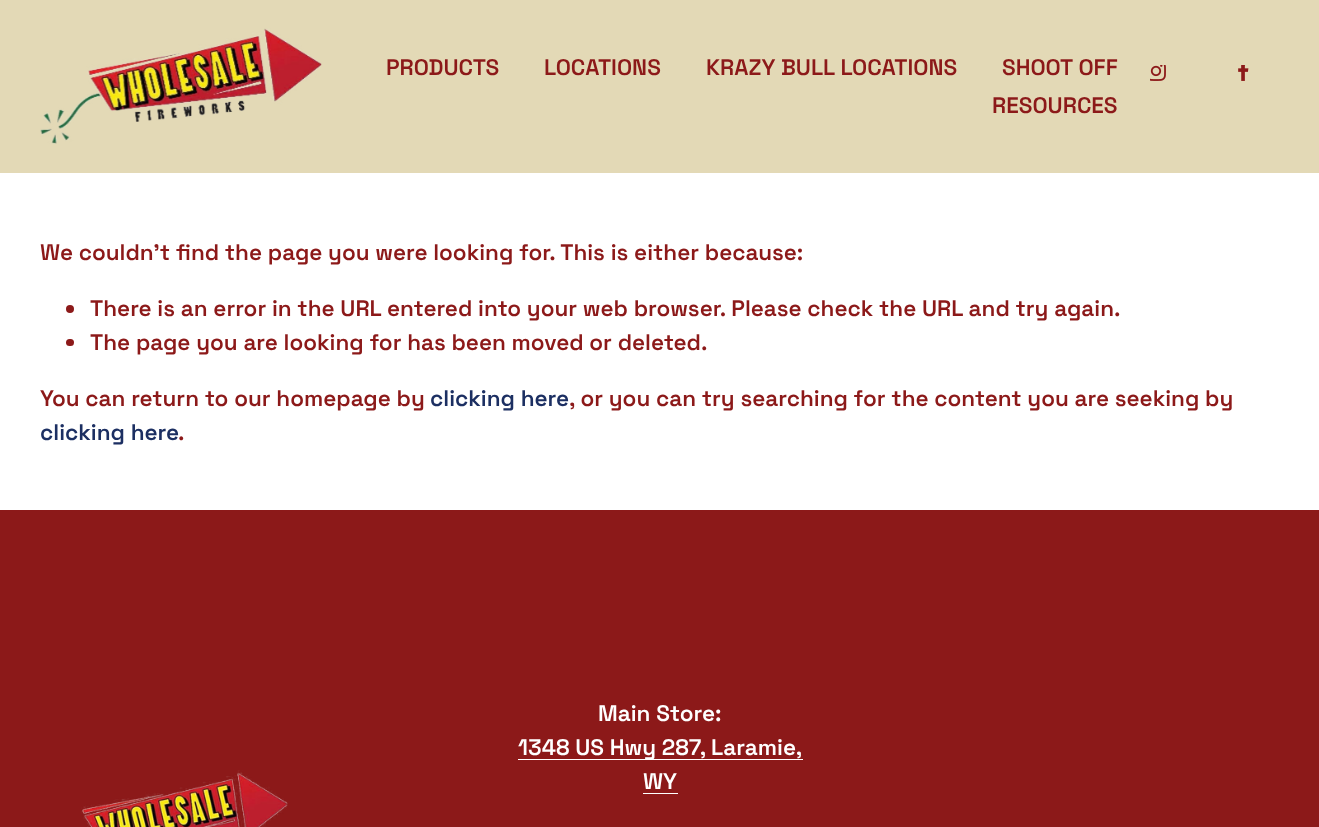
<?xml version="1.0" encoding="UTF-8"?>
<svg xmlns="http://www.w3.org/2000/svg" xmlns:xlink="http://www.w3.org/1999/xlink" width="1319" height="827">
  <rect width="100%" height="100%" fill="#ffffff" />
  <rect width="1319" height="173" fill="#e3d9b6" />
  <image x="40" y="28" width="282" height="116" xlink:href="image1.png" />
  <image x="1150" y="65" width="16" height="16" xlink:href="image2.png" />
  <image x="1238" y="65" width="11" height="16" xlink:href="image3.png" />
  <circle cx="70" cy="309" r="4" fill="#8c1919" />
  <rect x="66" y="339" width="8" height="7" rx="3.5" fill="#8c1919" />
  <rect y="510" width="1319" height="317" fill="#8c1919" />
  <rect x="518" y="759" width="285" height="1" fill="#ffffff" />
  <rect x="643" y="793" width="35" height="1" fill="#ffffff" />
  <image x="81" y="770" width="207" height="57" xlink:href="image4.png" />
  <text x="386" y="75" style="font-family: Space Grotesk; font-size: 22.5px; font-weight: 600; fill: #8c1919">PRODUCTS</text>
  <text x="544" y="75" style="font-family: Space Grotesk; font-size: 22.5px; font-weight: 600; fill: #8c1919">LOCATIONS</text>
  <text x="706" y="75" style="font-family: Space Grotesk; font-size: 22.5px; font-weight: 600; fill: #8c1919">KRAZY BULL LOCATIONS</text>
  <text x="1002" y="75" style="font-family: Space Grotesk; font-size: 22.5px; font-weight: 600; fill: #8c1919">SHOOT OFF</text>
  <text x="992" y="113" style="font-family: Space Grotesk; font-size: 22.5px; font-weight: 600; fill: #8c1919">RESOURCES</text>
  <text x="40" y="260" style="font-family: Space Grotesk; font-size: 22.5px; font-weight: 600; fill: #8c1919">We couldn't find the page you were looking for. This is either because:</text>
  <text x="90" y="316" style="font-family: Space Grotesk; font-size: 22.5px; font-weight: 600; fill: #8c1919">There is an error in the URL entered into your web browser. Please check the URL and try again.</text>
  <text x="90" y="350" style="font-family: Space Grotesk; font-size: 22.5px; font-weight: 600; fill: #8c1919">The page you are looking for has been moved or deleted.</text>
  <text x="40" y="406" style="font-family: Space Grotesk; font-size: 22.5px; font-weight: 600; fill: #8c1919">You can return to our homepage by</text>
  <text x="430" y="406" style="font-family: Space Grotesk; font-size: 22.5px; font-weight: 600; fill: #1c2f62">clicking here</text>
  <text x="569" y="406" style="font-family: Space Grotesk; font-size: 22.5px; font-weight: 600; fill: #8c1919">, or you can try searching for the content you are seeking by</text>
  <text x="40" y="440" style="font-family: Space Grotesk; font-size: 22.5px; font-weight: 600; fill: #1c2f62">clicking here</text>
  <text x="178" y="440" style="font-family: Space Grotesk; font-size: 22.5px; font-weight: 600; fill: #8c1919">.</text>
  <text x="598" y="721" style="font-family: Space Grotesk; font-size: 22.5px; font-weight: 600; fill: #ffffff">Main Store:</text>
  <text x="518" y="755" style="font-family: Space Grotesk; font-size: 22.5px; font-weight: 600; fill: #ffffff">1348 US Hwy 287, Laramie,</text>
  <text x="643" y="789" style="font-family: Space Grotesk; font-size: 22.5px; font-weight: 600; fill: #ffffff">WY</text>
</svg>
